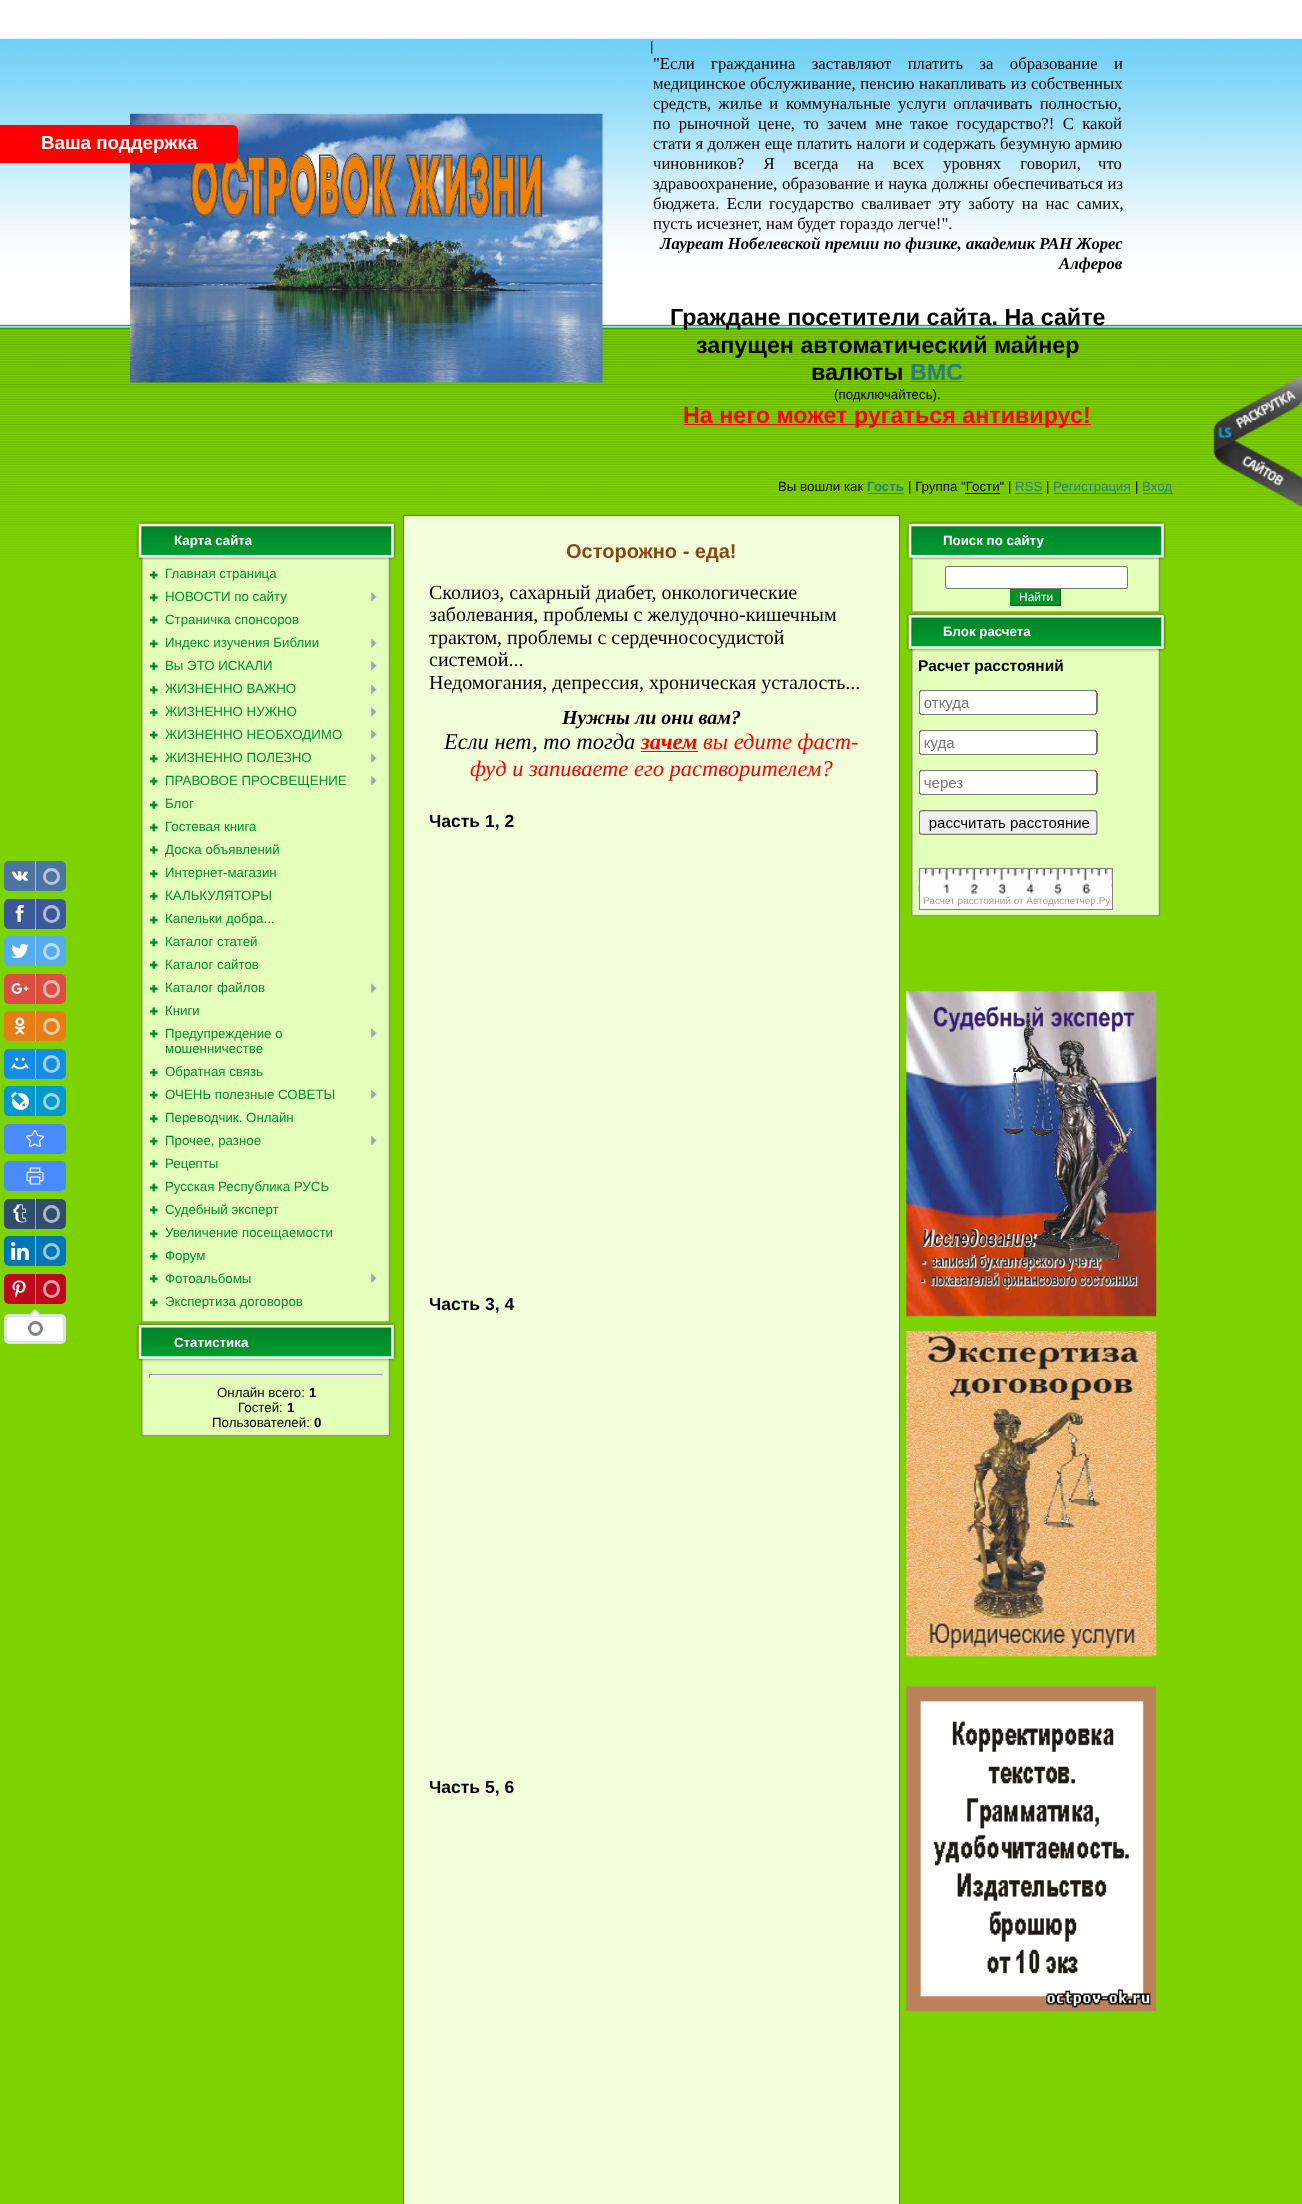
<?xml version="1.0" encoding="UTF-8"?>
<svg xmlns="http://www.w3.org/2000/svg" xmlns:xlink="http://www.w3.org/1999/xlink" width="1302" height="2204">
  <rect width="100%" height="100%" fill="#ffffff" />
  <rect y="560" width="1302" height="1644" fill="#7dd300" />
  <image x="0" y="38" width="1302" height="522" xlink:href="image1.png" />
  <image x="130" y="113" width="473" height="270" xlink:href="image2.png" />
  <rect x="910" y="381" width="54" height="1" fill="#2b7e7e" />
  <rect x="684" y="424" width="407" height="1" fill="#ff0000" />
  <rect x="868" y="493" width="36" height="1" fill="#2b7e7e" />
  <rect x="1015" y="493" width="28" height="1" fill="#2b7e7e" />
  <rect x="1054" y="493" width="77" height="1" fill="#2b7e7e" />
  <rect x="1143" y="493" width="30" height="1" fill="#2b7e7e" />
  <rect x="965" y="493" width="35" height="1" fill="#000000" />
  <path d="M 0 125 h 232 c 3.5 0 6 2.5 6 6 v 26 c 0 3.5 -2.5 6 -6 6 h -232 z" fill="#ff0000" />
  <rect x="4" y="861" width="62" height="30" rx="5" fill="#4d75a3" />
  <image x="11" y="871" width="18" height="10" xlink:href="image3.png" />
  <rect x="35" y="861" width="1" height="30" fill="#a6bad1" />
  <circle cx="51.5" cy="876.5" r="7" fill="none" stroke="#b8c8da" stroke-width="3" />
  <rect x="4" y="899" width="62" height="30" rx="5" fill="#3b5998" />
  <image x="15" y="905" width="9" height="17" xlink:href="image4.png" />
  <rect x="35" y="899" width="1" height="30" fill="#9daccc" />
  <rect x="44.5" y="906.5" width="14" height="15" rx="7" fill="none" stroke="#b1bdd6" stroke-width="3" />
  <rect x="4" y="936" width="62" height="30" rx="5" fill="#55acee" />
  <image x="11" y="943" width="18" height="16" xlink:href="image5.png" />
  <rect x="35" y="936" width="1" height="30" fill="#aad6f7" />
  <circle cx="51.5" cy="951.5" r="7" fill="none" stroke="#bbdef8" stroke-width="3" />
  <rect x="4" y="974" width="62" height="30" rx="5" fill="#dc4e41" />
  <image x="11" y="983" width="18" height="11" xlink:href="image6.png" />
  <rect x="35" y="974" width="1" height="30" fill="#eea7a0" />
  <rect x="44.5" y="981.5" width="14" height="15" rx="7" fill="none" stroke="#f1b8b3" stroke-width="3" />
  <rect x="4" y="1011" width="62" height="30" rx="5" fill="#e67e17" />
  <image x="14" y="1017" width="11" height="18" xlink:href="image7.png" />
  <rect x="35" y="1011" width="1" height="30" fill="#f3bf8b" />
  <circle cx="51.5" cy="1026.5" r="7" fill="none" stroke="#f5cba2" stroke-width="3" />
  <rect x="4" y="1049" width="62" height="30" rx="5" fill="#168de2" />
  <image x="11" y="1057" width="18" height="13" xlink:href="image8.png" />
  <rect x="35" y="1049" width="1" height="30" fill="#8bc6f1" />
  <rect x="44.5" y="1056.5" width="14" height="15" rx="7" fill="none" stroke="#a2d1f3" stroke-width="3" />
  <rect x="4" y="1086" width="62" height="30" rx="5" fill="#0099cc" />
  <image x="11" y="1092" width="18" height="18" xlink:href="image9.png" />
  <rect x="35" y="1086" width="1" height="30" fill="#80cce6" />
  <circle cx="51.5" cy="1101.5" r="7" fill="none" stroke="#99d6eb" stroke-width="3" />
  <rect x="4" y="1124" width="62" height="30" rx="5" fill="#498bfa" />
  <image x="26" y="1130" width="18" height="17" xlink:href="image10.png" />
  <rect x="4" y="1161" width="62" height="30" rx="5" fill="#498bfa" />
  <image x="26" y="1167" width="18" height="18" xlink:href="image11.png" />
  <rect x="4" y="1199" width="62" height="30" rx="5" fill="#304e6c" />
  <image x="13" y="1204" width="14" height="19" xlink:href="image12.png" />
  <rect x="35" y="1199" width="1" height="30" fill="#98a7b6" />
  <rect x="44.5" y="1206.5" width="14" height="15" rx="7" fill="none" stroke="#acb8c4" stroke-width="3" />
  <rect x="4" y="1236" width="62" height="30" rx="5" fill="#0077b5" />
  <image x="11" y="1242" width="18" height="18" xlink:href="image13.png" />
  <rect x="35" y="1236" width="1" height="30" fill="#80bbda" />
  <circle cx="51.5" cy="1251.5" r="7" fill="none" stroke="#99c9e1" stroke-width="3" />
  <rect x="4" y="1274" width="62" height="30" rx="5" fill="#bd081c" />
  <image x="12" y="1280" width="14" height="18" xlink:href="image14.png" />
  <rect x="35" y="1274" width="1" height="30" fill="#de848e" />
  <rect x="44.5" y="1281.5" width="14" height="15" rx="7" fill="none" stroke="#e59ca4" stroke-width="3" />
  <rect x="5.5" y="1315.5" width="59" height="27" rx="3.5" fill="#ffffff" stroke="#e0e2e6" stroke-width="3" />
  <path d="M 42.5 1316 h -15 l 7.5 -7 z" fill="#d8dcde" />
  <path d="M 39 1316 h -8 l 4 -5 z" fill="#ffffff" />
  <circle cx="35.5" cy="1328.5" r="6" fill="none" stroke="#81858b" stroke-width="3" />
  <image x="136" y="521" width="260" height="39" xlink:href="image15.png" />
  <image x="141" y="560" width="250" height="763" xlink:href="image16.png" />
  <image x="149" y="571" width="9" height="8" xlink:href="image17.png" />
  <image x="149" y="593" width="9" height="9" xlink:href="image18.png" />
  <image x="371" y="592" width="6" height="10" xlink:href="image19.png" />
  <image x="149" y="616" width="9" height="8" xlink:href="image17.png" />
  <image x="149" y="639" width="9" height="9" xlink:href="image20.png" />
  <image x="371" y="638" width="6" height="10" xlink:href="image21.png" />
  <image x="149" y="662" width="9" height="9" xlink:href="image22.png" />
  <image x="371" y="661" width="6" height="9" xlink:href="image23.png" />
  <image x="149" y="686" width="9" height="8" xlink:href="image17.png" />
  <image x="371" y="685" width="6" height="9" xlink:href="image24.png" />
  <image x="149" y="708" width="9" height="9" xlink:href="image18.png" />
  <image x="371" y="707" width="6" height="10" xlink:href="image19.png" />
  <image x="149" y="731" width="9" height="8" xlink:href="image17.png" />
  <image x="371" y="730" width="6" height="9" xlink:href="image24.png" />
  <image x="149" y="754" width="9" height="9" xlink:href="image20.png" />
  <image x="371" y="753" width="6" height="10" xlink:href="image21.png" />
  <image x="149" y="777" width="9" height="9" xlink:href="image25.png" />
  <image x="371" y="776" width="6" height="9" xlink:href="image26.png" />
  <image x="149" y="801" width="9" height="8" xlink:href="image17.png" />
  <image x="149" y="823" width="9" height="9" xlink:href="image18.png" />
  <image x="149" y="846" width="9" height="8" xlink:href="image17.png" />
  <image x="149" y="869" width="9" height="9" xlink:href="image20.png" />
  <image x="149" y="892" width="9" height="9" xlink:href="image22.png" />
  <image x="149" y="916" width="9" height="8" xlink:href="image17.png" />
  <image x="149" y="938" width="9" height="9" xlink:href="image18.png" />
  <image x="149" y="961" width="9" height="8" xlink:href="image17.png" />
  <image x="149" y="984" width="9" height="9" xlink:href="image20.png" />
  <image x="371" y="983" width="6" height="10" xlink:href="image21.png" />
  <image x="149" y="1007" width="9" height="9" xlink:href="image22.png" />
  <image x="149" y="1029" width="9" height="9" xlink:href="image20.png" />
  <image x="371" y="1028" width="6" height="10" xlink:href="image21.png" />
  <image x="149" y="1068" width="9" height="9" xlink:href="image18.png" />
  <image x="149" y="1091" width="9" height="8" xlink:href="image17.png" />
  <image x="371" y="1090" width="6" height="9" xlink:href="image24.png" />
  <image x="149" y="1114" width="9" height="9" xlink:href="image20.png" />
  <image x="149" y="1137" width="9" height="9" xlink:href="image22.png" />
  <image x="371" y="1136" width="6" height="9" xlink:href="image23.png" />
  <image x="149" y="1159" width="9" height="9" xlink:href="image20.png" />
  <image x="149" y="1183" width="9" height="9" xlink:href="image18.png" />
  <image x="149" y="1206" width="9" height="8" xlink:href="image17.png" />
  <image x="149" y="1229" width="9" height="9" xlink:href="image20.png" />
  <image x="149" y="1252" width="9" height="9" xlink:href="image22.png" />
  <image x="149" y="1274" width="9" height="9" xlink:href="image20.png" />
  <image x="371" y="1273" width="6" height="10" xlink:href="image21.png" />
  <image x="149" y="1298" width="9" height="9" xlink:href="image18.png" />
  <image x="136" y="1322" width="261" height="40" xlink:href="image27.png" />
  <image x="141" y="1361" width="250" height="76" xlink:href="image28.png" />
  <rect x="149" y="1374" width="235" height="1" fill="#9f9f9f" />
  <rect x="383" y="1374" width="1" height="4" fill="#eeeeee" />
  <rect x="149" y="1376" width="235" height="1" fill="#eeeeee" />
  <rect x="149" y="1374" width="1" height="4" fill="#9f9f9f" />
  <rect x="403.5" y="515.5" width="496" height="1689" fill="#f0ffd9" stroke="#499200" />
  <rect x="641" y="751" width="57" height="1" fill="#ff0000" />
  <image x="1213" y="375" width="89" height="132" xlink:href="image29.png" />
  <image x="906" y="521" width="260" height="39" xlink:href="image15.png" />
  <image x="911" y="560" width="250" height="53" xlink:href="image30.png" />
  <rect x="945.5" y="566.5" width="182" height="22" rx="2" fill="#ffffff" stroke="#767676" />
  <rect x="1011" y="589" width="49" height="16" fill="#00912c" />
  <rect x="1060" y="589" width="1" height="17" fill="#00611d" />
  <rect x="1010" y="605" width="51" height="1" fill="#00611d" />
  <rect x="1010" y="589" width="1" height="17" fill="#00912c" />
  <image x="906" y="612" width="261" height="40" xlink:href="image27.png" />
  <image x="911" y="651" width="250" height="266" xlink:href="image31.png" />
  <image x="919" y="690" width="179" height="145" xlink:href="image32.png" />
  <image x="918" y="868" width="194" height="42" xlink:href="image33.png" />
  <rect x="919.5" y="868.5" width="193" height="41" fill="none" stroke="#808080" />
  <image x="906" y="991" width="251" height="326" xlink:href="image34.png" />
  <image x="906" y="1331" width="251" height="326" xlink:href="image35.png" />
  <image x="906" y="1686" width="251" height="326" xlink:href="image36.png" />
  <text x="650" y="51" style="font-family: Liberation Sans; font-size: 13.3px; fill: #000000">|</text>
  <text x="653" y="69" word-spacing="12.25" style="font-family: Liberation Serif; font-size: 16.7px; fill: #000000">"Если гражданина заставляют платить за образование и</text>
  <text x="653" y="89" style="font-family: Liberation Serif; font-size: 16.7px; fill: #000000">медицинское</text>
  <text x="750" y="89" word-spacing="0.5" style="font-family: Liberation Serif; font-size: 16.7px; fill: #000000">обслуживание, пенсию накапливать из собственных</text>
  <text x="653" y="109" word-spacing="3" style="font-family: Liberation Serif; font-size: 16.7px; fill: #000000">средств, жилье и</text>
  <text x="786" y="109" word-spacing="3" style="font-family: Liberation Serif; font-size: 16.7px; fill: #000000">коммунальные услуги оплачивать полностью,</text>
  <text x="653" y="129" word-spacing="4.25" style="font-family: Liberation Serif; font-size: 16.7px; fill: #000000">по рыночной цене, то зачем мне</text>
  <text x="910" y="129" word-spacing="4.25" style="font-family: Liberation Serif; font-size: 16.7px; fill: #000000">такое государство?! С какой</text>
  <text x="653" y="149" word-spacing="0.25" style="font-family: Liberation Serif; font-size: 16.7px; fill: #000000">стати я должен еще платить налоги и</text>
  <text x="923" y="149" style="font-family: Liberation Serif; font-size: 16.7px; fill: #000000">содержать безумную армию</text>
  <text x="653" y="169" word-spacing="15" style="font-family: Liberation Serif; font-size: 16.7px; fill: #000000">чиновников? Я всегда на всех уровнях говорил,</text>
  <text x="1098" y="169" style="font-family: Liberation Serif; font-size: 16.7px; fill: #000000">что</text>
  <text x="653" y="189" word-spacing="0.5" style="font-family: Liberation Serif; font-size: 16.7px; fill: #000000">здравоохранение, образование и наука должны обеспечиваться из</text>
  <text x="653" y="209" word-spacing="3.25" style="font-family: Liberation Serif; font-size: 16.7px; fill: #000000">бюджета. Если государство сваливает эту заботу на нас самих,</text>
  <text x="653" y="229" style="font-family: Liberation Serif; font-size: 16.7px; fill: #000000">пусть исчезнет, нам будет гораздо легче!".</text>
  <text x="660" y="249" style="font-family: Liberation Serif; font-size: 16.7px; font-weight: bold; font-style: italic; fill: #000000">Лауреат Нобелевской премии по физике, академик РАН Жорес</text>
  <text x="1059" y="269" style="font-family: Liberation Serif; font-size: 16.7px; font-weight: bold; font-style: italic; fill: #000000">Алферов</text>
  <text x="670" y="325" style="font-family: Liberation Sans; font-size: 23.3px; font-weight: bold; fill: #000000">Граждане посетители сайта. На сайте</text>
  <text x="696" y="353" style="font-family: Liberation Sans; font-size: 23.3px; font-weight: bold; fill: #000000">запущен автоматический майнер</text>
  <text x="811" y="380" style="font-family: Liberation Sans; font-size: 23.3px; font-weight: bold; fill: #000000">валюты</text>
  <text x="910" y="380" style="font-family: Liberation Sans; font-size: 23.3px; font-weight: bold; fill: #2b7e7e">ВМС</text>
  <text x="834" y="399" style="font-family: Liberation Sans; font-size: 13.3px; fill: #000000">(подключайтесь).</text>
  <text x="683" y="423" style="font-family: Liberation Sans; font-size: 23.3px; font-weight: bold; fill: #ff0000">На него может ругаться антивирус!</text>
  <text x="778" y="491" style="font-family: Liberation Sans; font-size: 13.3px; fill: #000000">Вы вошли как</text>
  <text x="867" y="491" style="font-family: Liberation Sans; font-size: 13.3px; font-weight: bold; fill: #2b7e7e">Гость</text>
  <text x="908" y="491" style="font-family: Liberation Sans; font-size: 13.3px; fill: #000000">| Группа "Гости" |</text>
  <text x="1015" y="491" style="font-family: Liberation Sans; font-size: 13.3px; fill: #2b7e7e">RSS</text>
  <text x="1046" y="491" style="font-family: Liberation Sans; font-size: 13.3px; fill: #000000">|</text>
  <text x="1053" y="491" style="font-family: Liberation Sans; font-size: 13.3px; fill: #2b7e7e">Регистрация</text>
  <text x="1135" y="491" style="font-family: Liberation Sans; font-size: 13.3px; fill: #000000">|</text>
  <text x="1142" y="491" style="font-family: Liberation Sans; font-size: 13.3px; fill: #2b7e7e">Вход</text>
  <text x="41" y="149" style="font-family: Liberation Sans; font-size: 18.75px; font-weight: bold; fill: #ffffff">Ваша поддержка</text>
  <text x="174" y="545" style="font-family: Liberation Sans; font-size: 13.3px; font-weight: bold; fill: #ffffff">Карта сайта</text>
  <text x="165" y="578" style="font-family: Liberation Sans; font-size: 13.3px; fill: #00912c">Главная страница</text>
  <text x="165" y="601" style="font-family: Liberation Sans; font-size: 13.3px; fill: #00912c">НОВОСТИ по сайту</text>
  <text x="165" y="624" style="font-family: Liberation Sans; font-size: 13.3px; fill: #00912c">Страничка спонсоров</text>
  <text x="165" y="647" style="font-family: Liberation Sans; font-size: 13.3px; fill: #00912c">Индекс изучения Библии</text>
  <text x="165" y="670" style="font-family: Liberation Sans; font-size: 13.3px; fill: #00912c">Вы ЭТО ИСКАЛИ</text>
  <text x="165" y="693" style="font-family: Liberation Sans; font-size: 13.3px; fill: #00912c">ЖИЗНЕННО ВАЖНО</text>
  <text x="165" y="716" style="font-family: Liberation Sans; font-size: 13.3px; fill: #00912c">ЖИЗНЕННО НУЖНО</text>
  <text x="165" y="739" style="font-family: Liberation Sans; font-size: 13.3px; fill: #00912c">ЖИЗНЕННО НЕОБХОДИМО</text>
  <text x="165" y="762" style="font-family: Liberation Sans; font-size: 13.3px; fill: #00912c">ЖИЗНЕННО ПОЛЕЗНО</text>
  <text x="165" y="785" style="font-family: Liberation Sans; font-size: 13.3px; fill: #00912c">ПРАВОВОЕ ПРОСВЕЩЕНИЕ</text>
  <text x="165" y="808" style="font-family: Liberation Sans; font-size: 13.3px; fill: #00912c">Блог</text>
  <text x="165" y="831" style="font-family: Liberation Sans; font-size: 13.3px; fill: #00912c">Гостевая книга</text>
  <text x="165" y="854" style="font-family: Liberation Sans; font-size: 13.3px; fill: #00912c">Доска объявлений</text>
  <text x="165" y="877" style="font-family: Liberation Sans; font-size: 13.3px; fill: #00912c">Интернет-магазин</text>
  <text x="165" y="900" style="font-family: Liberation Sans; font-size: 13.3px; fill: #00912c">КАЛЬКУЛЯТОРЫ</text>
  <text x="165" y="923" style="font-family: Liberation Sans; font-size: 13.3px; fill: #00912c">Капельки добра...</text>
  <text x="165" y="946" style="font-family: Liberation Sans; font-size: 13.3px; fill: #00912c">Каталог статей</text>
  <text x="165" y="969" style="font-family: Liberation Sans; font-size: 13.3px; fill: #00912c">Каталог сайтов</text>
  <text x="165" y="992" style="font-family: Liberation Sans; font-size: 13.3px; fill: #00912c">Каталог файлов</text>
  <text x="165" y="1015" style="font-family: Liberation Sans; font-size: 13.3px; fill: #00912c">Книги</text>
  <text x="165" y="1038" style="font-family: Liberation Sans; font-size: 13.3px; fill: #00912c">Предупреждение о</text>
  <text x="165" y="1053" style="font-family: Liberation Sans; font-size: 13.3px; fill: #00912c">мошенничестве</text>
  <text x="165" y="1076" style="font-family: Liberation Sans; font-size: 13.3px; fill: #00912c">Обратная связь</text>
  <text x="165" y="1099" style="font-family: Liberation Sans; font-size: 13.3px; fill: #00912c">ОЧЕНЬ полезные СОВЕТЫ</text>
  <text x="165" y="1122" style="font-family: Liberation Sans; font-size: 13.3px; fill: #00912c">Переводчик. Онлайн</text>
  <text x="165" y="1145" style="font-family: Liberation Sans; font-size: 13.3px; fill: #00912c">Прочее, разное</text>
  <text x="165" y="1168" style="font-family: Liberation Sans; font-size: 13.3px; fill: #00912c">Рецепты</text>
  <text x="165" y="1191" style="font-family: Liberation Sans; font-size: 13.3px; fill: #00912c">Русская Республика РУСЬ</text>
  <text x="165" y="1214" style="font-family: Liberation Sans; font-size: 13.3px; fill: #00912c">Судебный эксперт</text>
  <text x="165" y="1237" style="font-family: Liberation Sans; font-size: 13.3px; fill: #00912c">Увеличение посещаемости</text>
  <text x="165" y="1260" style="font-family: Liberation Sans; font-size: 13.3px; fill: #00912c">Форум</text>
  <text x="165" y="1283" style="font-family: Liberation Sans; font-size: 13.3px; fill: #00912c">Фотоальбомы</text>
  <text x="165" y="1306" style="font-family: Liberation Sans; font-size: 13.3px; fill: #00912c">Экспертиза договоров</text>
  <text x="174" y="1347" style="font-family: Liberation Sans; font-size: 13.3px; font-weight: bold; fill: #ffffff">Статистика</text>
  <text x="217" y="1397" style="font-family: Liberation Sans; font-size: 13.3px; fill: #000000">Онлайн всего:</text>
  <text x="309" y="1397" style="font-family: Liberation Sans; font-size: 13.3px; font-weight: bold; fill: #000000">1</text>
  <text x="238" y="1412" style="font-family: Liberation Sans; font-size: 13.3px; fill: #000000">Гостей:</text>
  <text x="287" y="1412" style="font-family: Liberation Sans; font-size: 13.3px; font-weight: bold; fill: #000000">1</text>
  <text x="212" y="1427" style="font-family: Liberation Sans; font-size: 13.3px; fill: #000000">Пользователей:</text>
  <text x="314" y="1427" style="font-family: Liberation Sans; font-size: 13.3px; font-weight: bold; fill: #000000">0</text>
  <text x="566" y="558" style="font-family: Liberation Sans; font-size: 20px; font-weight: bold; fill: #8b4513">Осторожно - еда!</text>
  <text x="429" y="599" style="font-family: Liberation Serif; font-size: 20px; fill: #000000">Сколиоз, сахарный диабет, онкологические</text>
  <text x="429" y="621" style="font-family: Liberation Serif; font-size: 20px; fill: #000000">заболевания, проблемы с желудочно-кишечным</text>
  <text x="429" y="644" style="font-family: Liberation Serif; font-size: 20px; fill: #000000">трактом, проблемы с сердечнососудистой</text>
  <text x="429" y="666" style="font-family: Liberation Serif; font-size: 20px; fill: #000000">системой...</text>
  <text x="429" y="689" style="font-family: Liberation Serif; font-size: 20px; fill: #000000">Недомогания, депрессия, хроническая усталость...</text>
  <text x="562" y="724" style="font-family: Liberation Serif; font-size: 20px; font-weight: bold; font-style: italic; fill: #000000">Нужны ли они вам?</text>
  <text x="444" y="749" style="font-family: Liberation Serif; font-size: 22.5px; font-style: italic; fill: #000000">Если нет, то тогда</text>
  <text x="641" y="749" style="font-family: Liberation Serif; font-size: 22.5px; font-weight: bold; font-style: italic; fill: #ff0000">зачем</text>
  <text x="703" y="749" style="font-family: Liberation Serif; font-size: 22.5px; font-style: italic; fill: #ff0000">вы едите фаст-</text>
  <text x="470" y="776" style="font-family: Liberation Serif; font-size: 22.5px; font-style: italic; fill: #ff0000">фуд и запиваете его растворителем?</text>
  <text x="429" y="827" style="font-family: Liberation Sans; font-size: 17.5px; font-weight: bold; fill: #000000">Часть 1, 2</text>
  <text x="429" y="1310" style="font-family: Liberation Sans; font-size: 17.5px; font-weight: bold; fill: #000000">Часть 3, 4</text>
  <text x="429" y="1793" style="font-family: Liberation Sans; font-size: 17.5px; font-weight: bold; fill: #000000">Часть 5, 6</text>
  <text x="943" y="545" style="font-family: Liberation Sans; font-size: 13.3px; font-weight: bold; fill: #ffffff">Поиск по сайту</text>
  <text x="1019" y="601" style="font-family: Liberation Sans; font-size: 12px; fill: #ffffff">Найти</text>
  <text x="943" y="636" style="font-family: Liberation Sans; font-size: 13.3px; font-weight: bold; fill: #ffffff">Блок расчета</text>
  <text x="918" y="671" style="font-family: Liberation Sans; font-size: 15.5px; font-weight: bold; fill: #000000">Расчет расстояний</text>
  <text x="923" y="904" style="font-family: Liberation Sans; font-size: 10px; fill: #a1a1a1">Расчет расстояний от Автодиспетчер.Ру</text>
</svg>
